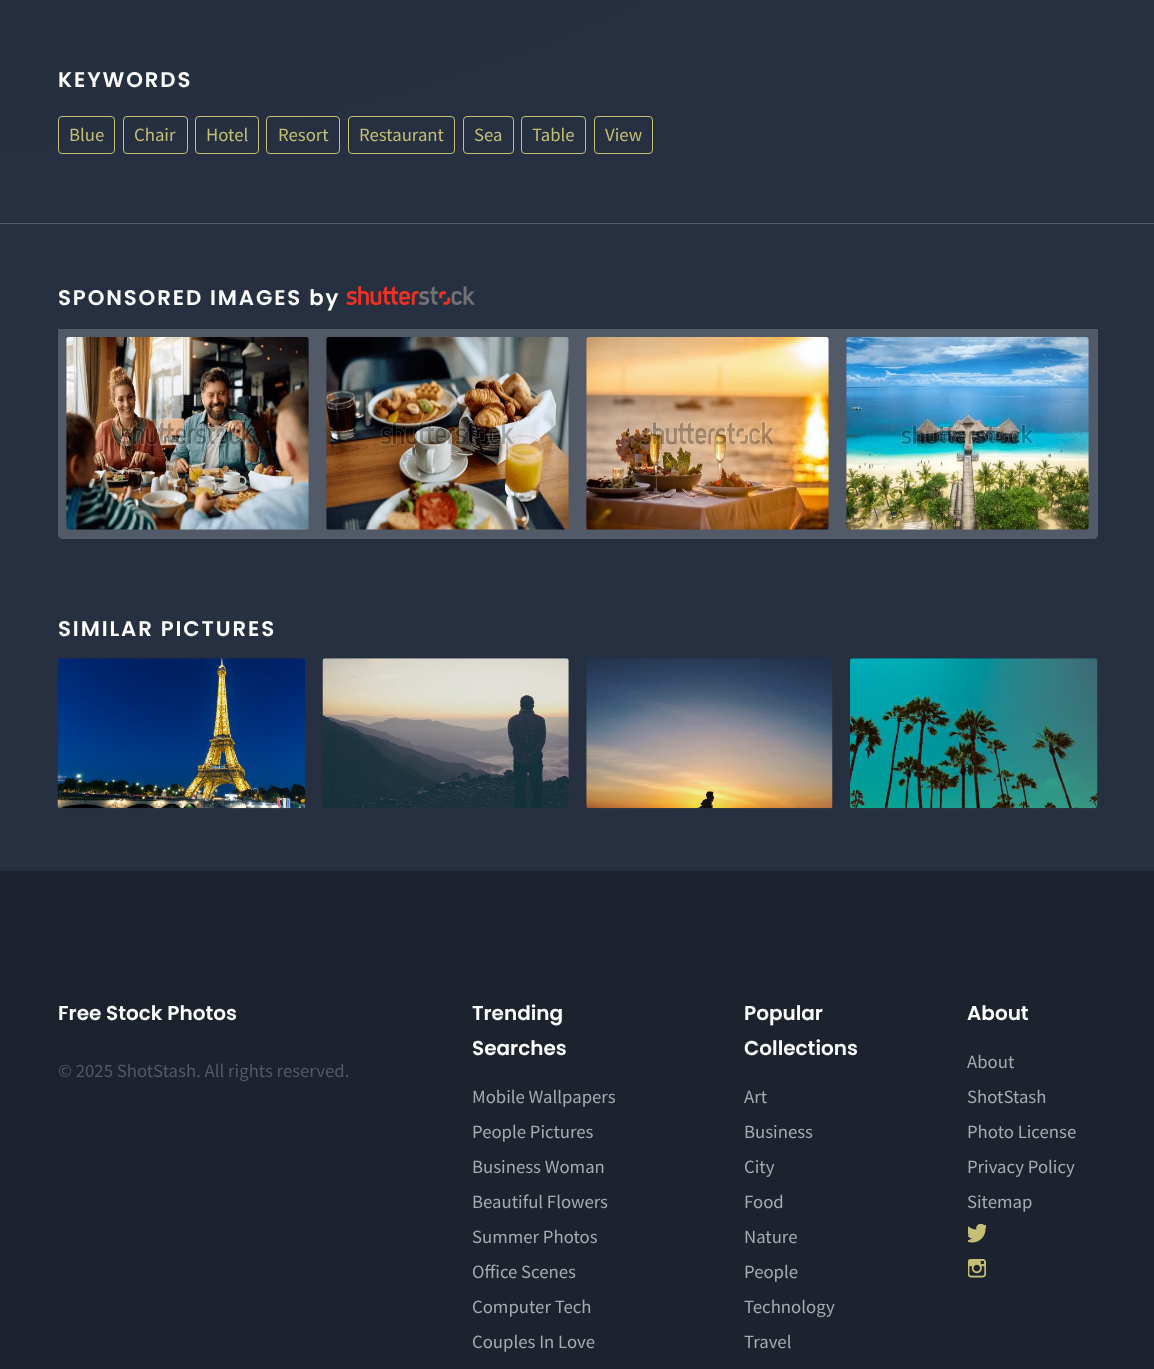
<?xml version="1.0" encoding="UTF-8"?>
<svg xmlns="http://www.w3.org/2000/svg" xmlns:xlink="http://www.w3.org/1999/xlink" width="1154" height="1369">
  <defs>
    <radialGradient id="g1" gradientUnits="userSpaceOnUse" cx="0" cy="-1352" r="3062"><stop offset="0" stop-color="#1b222d" /><stop offset="0.5" stop-color="#273041" /></radialGradient>
  </defs>
  <rect width="100%" height="100%" fill="#ffffff" />
  <rect width="1154" height="871" fill="url(#g1)" />
  <rect y="223" width="1154" height="1" fill="#525967" />
  <rect x="58.5" y="116.5" width="56" height="37" rx="3.5" fill="none" stroke="#c5be75" />
  <rect x="123.5" y="116.5" width="64" height="37" rx="3.5" fill="none" stroke="#c5be75" />
  <rect x="195.5" y="116.5" width="63" height="37" rx="3.5" fill="none" stroke="#c5be75" />
  <rect x="266.5" y="116.5" width="73" height="37" rx="3.5" fill="none" stroke="#c5be75" />
  <rect x="348.5" y="116.5" width="106" height="37" rx="3.5" fill="none" stroke="#c5be75" />
  <rect x="463.5" y="116.5" width="50" height="37" rx="3.5" fill="none" stroke="#c5be75" />
  <rect x="521.5" y="116.5" width="64" height="37" rx="3.5" fill="none" stroke="#c5be75" />
  <rect x="594.5" y="116.5" width="58" height="37" rx="3.5" fill="none" stroke="#c5be75" />
  <image x="346" y="286" width="129" height="19" xlink:href="image1.png" />
  <path d="M 58 329 h 1040 v 205 c 0 3 -2 5 -5 5 h -1030 c -3 0 -5 -2 -5 -5 z" fill="#525967" />
  <image x="66" y="337" width="243" height="193" xlink:href="image2.png" />
  <image x="326" y="337" width="243" height="193" xlink:href="image3.png" />
  <image x="586" y="337" width="243" height="193" xlink:href="image4.png" />
  <image x="846" y="337" width="243" height="193" xlink:href="image5.png" />
  <image x="57" y="658" width="248" height="151" xlink:href="image6.png" />
  <image x="322" y="658" width="247" height="150" xlink:href="image7.png" />
  <image x="586" y="658" width="247" height="151" xlink:href="image8.png" />
  <image x="850" y="658" width="248" height="151" xlink:href="image9.png" />
  <rect y="871" width="1154" height="498" fill="#1c232f" />
  <image x="968" y="1224" width="18" height="19" xlink:href="image10.png" />
  <image x="968" y="1259" width="18" height="19" xlink:href="image11.png" />
  <text x="58" y="87" style="font-family: Poppins; font-size: 21.25px; font-weight: 600; letter-spacing: 1.9px; fill: #ffffff">KEYWORDS</text>
  <text x="69" y="141" style="font-family: Source Sans Pro; font-size: 18.75px; fill: #c5be75">Blue</text>
  <text x="134" y="141" style="font-family: Source Sans Pro; font-size: 18.75px; fill: #c5be75">Chair</text>
  <text x="206" y="141" style="font-family: Source Sans Pro; font-size: 18.75px; fill: #c5be75">Hotel</text>
  <text x="278" y="141" style="font-family: Source Sans Pro; font-size: 18.75px; fill: #c5be75">Resort</text>
  <text x="359" y="141" style="font-family: Source Sans Pro; font-size: 18.75px; fill: #c5be75">Restaurant</text>
  <text x="474" y="141" style="font-family: Source Sans Pro; font-size: 18.75px; fill: #c5be75">Sea</text>
  <text x="532" y="141" style="font-family: Source Sans Pro; font-size: 18.75px; fill: #c5be75">Table</text>
  <text x="605" y="141" style="font-family: Source Sans Pro; font-size: 18.75px; fill: #c5be75">View</text>
  <text x="58" y="305" style="font-family: Poppins; font-size: 21.25px; font-weight: 600; letter-spacing: 1.9px; fill: #ffffff">SPONSORED IMAGES by</text>
  <text x="58" y="636" style="font-family: Poppins; font-size: 21.25px; font-weight: 600; letter-spacing: 1.9px; fill: #ffffff">SIMILAR PICTURES</text>
  <text x="58" y="1020" style="font-family: Poppins; font-size: 20px; font-weight: 600; fill: #ffffff">Free Stock Photos</text>
  <text x="58" y="1077" style="font-family: Source Sans Pro; font-size: 18.75px; fill: #525964">© 2025 ShotStash. All rights reserved.</text>
  <text x="472" y="1020" style="font-family: Poppins; font-size: 20px; font-weight: 600; fill: #ffffff">Trending</text>
  <text x="472" y="1055" style="font-family: Poppins; font-size: 20px; font-weight: 600; fill: #ffffff">Searches</text>
  <text x="472" y="1103" style="font-family: Source Sans Pro; font-size: 18.75px; fill: #a7aaaf">Mobile Wallpapers</text>
  <text x="472" y="1138" style="font-family: Source Sans Pro; font-size: 18.75px; fill: #a7aaaf">People Pictures</text>
  <text x="472" y="1173" style="font-family: Source Sans Pro; font-size: 18.75px; fill: #a7aaaf">Business Woman</text>
  <text x="472" y="1208" style="font-family: Source Sans Pro; font-size: 18.75px; fill: #a7aaaf">Beautiful Flowers</text>
  <text x="472" y="1243" style="font-family: Source Sans Pro; font-size: 18.75px; fill: #a7aaaf">Summer Photos</text>
  <text x="472" y="1278" style="font-family: Source Sans Pro; font-size: 18.75px; fill: #a7aaaf">Office Scenes</text>
  <text x="472" y="1313" style="font-family: Source Sans Pro; font-size: 18.75px; fill: #a7aaaf">Computer Tech</text>
  <text x="472" y="1348" style="font-family: Source Sans Pro; font-size: 18.75px; fill: #a7aaaf">Couples In Love</text>
  <text x="744" y="1020" style="font-family: Poppins; font-size: 20px; font-weight: 600; fill: #ffffff">Popular</text>
  <text x="744" y="1055" style="font-family: Poppins; font-size: 20px; font-weight: 600; fill: #ffffff">Collections</text>
  <text x="744" y="1103" style="font-family: Source Sans Pro; font-size: 18.75px; fill: #a7aaaf">Art</text>
  <text x="744" y="1138" style="font-family: Source Sans Pro; font-size: 18.75px; fill: #a7aaaf">Business</text>
  <text x="744" y="1173" style="font-family: Source Sans Pro; font-size: 18.75px; fill: #a7aaaf">City</text>
  <text x="744" y="1208" style="font-family: Source Sans Pro; font-size: 18.75px; fill: #a7aaaf">Food</text>
  <text x="744" y="1243" style="font-family: Source Sans Pro; font-size: 18.75px; fill: #a7aaaf">Nature</text>
  <text x="744" y="1278" style="font-family: Source Sans Pro; font-size: 18.75px; fill: #a7aaaf">People</text>
  <text x="744" y="1313" style="font-family: Source Sans Pro; font-size: 18.75px; fill: #a7aaaf">Technology</text>
  <text x="744" y="1348" style="font-family: Source Sans Pro; font-size: 18.75px; fill: #a7aaaf">Travel</text>
  <text x="967" y="1020" style="font-family: Poppins; font-size: 20px; font-weight: 600; fill: #ffffff">About</text>
  <text x="967" y="1068" style="font-family: Source Sans Pro; font-size: 18.75px; fill: #a7aaaf">About</text>
  <text x="967" y="1103" style="font-family: Source Sans Pro; font-size: 18.75px; fill: #a7aaaf">ShotStash</text>
  <text x="967" y="1138" style="font-family: Source Sans Pro; font-size: 18.75px; fill: #a7aaaf">Photo License</text>
  <text x="967" y="1173" style="font-family: Source Sans Pro; font-size: 18.75px; fill: #a7aaaf">Privacy Policy</text>
  <text x="967" y="1208" style="font-family: Source Sans Pro; font-size: 18.75px; fill: #a7aaaf">Sitemap</text>
</svg>
